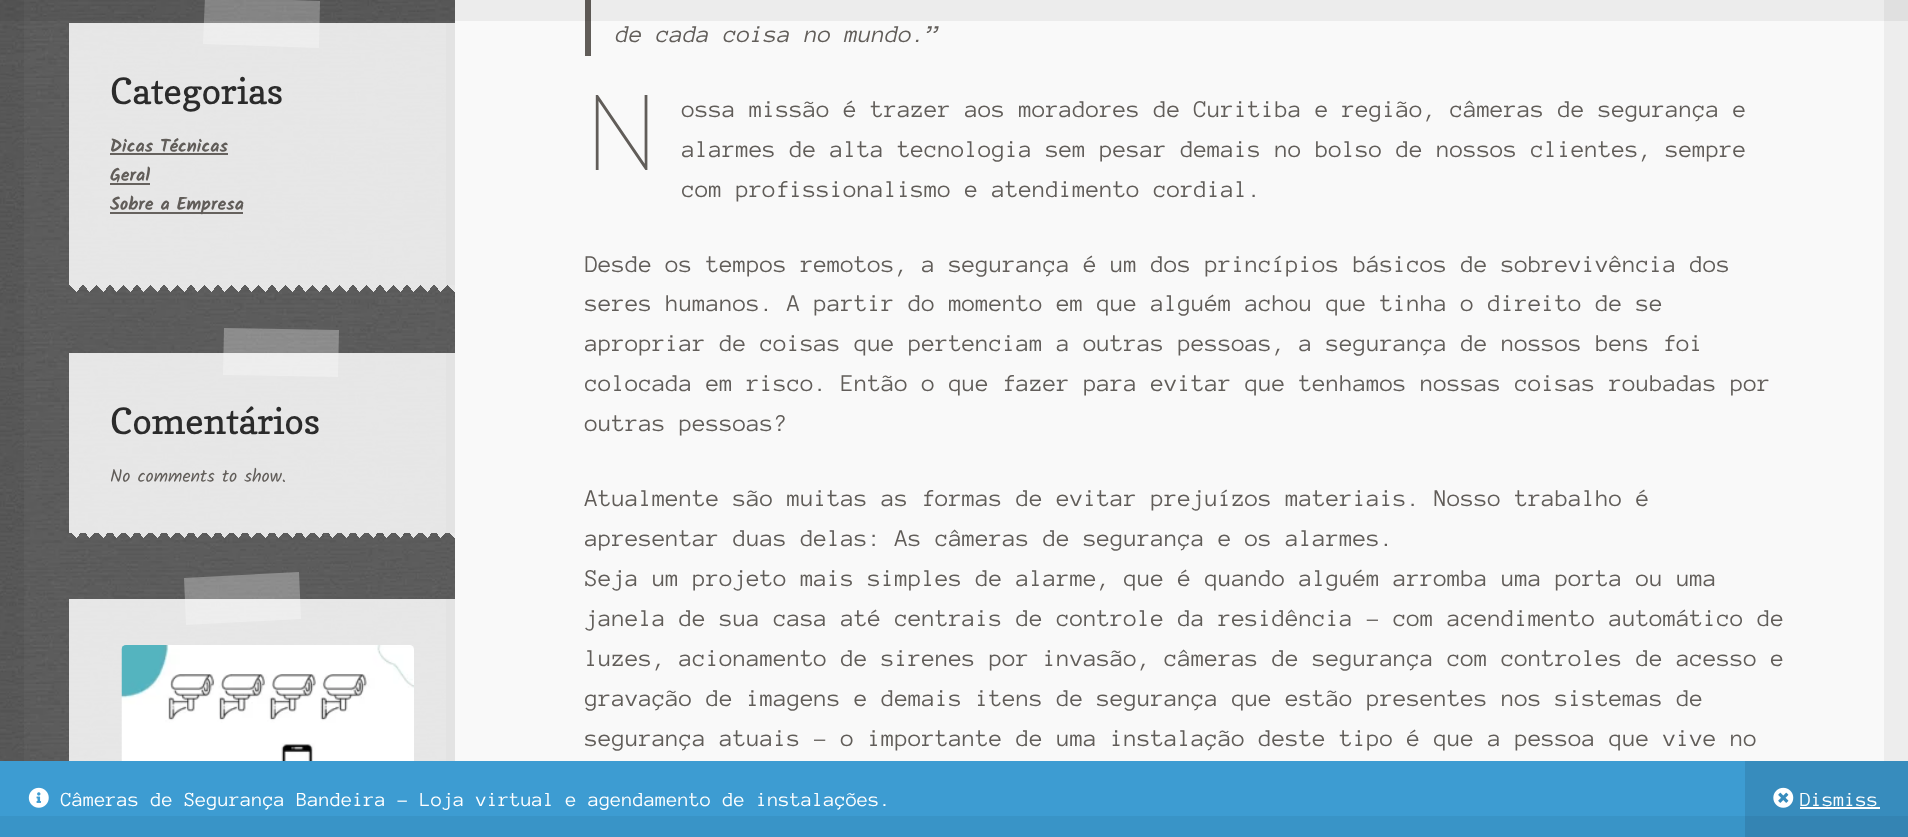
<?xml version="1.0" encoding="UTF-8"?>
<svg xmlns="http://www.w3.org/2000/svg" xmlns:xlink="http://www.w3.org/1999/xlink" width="1908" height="837">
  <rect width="100%" height="100%" fill="#ffffff" />
  <image x="0" y="0" width="455" height="761" xlink:href="image1.png" />
  <rect width="24" height="761" fill="#000000" fill-opacity="0.05" />
  <rect x="69" y="23" width="377" height="262" fill="#ffffff" fill-opacity="0.85" />
  <path d="M 205 -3 l 115 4 l -1 47 l -116 -4 z" fill="#ffffff" fill-opacity="0.3" />
  <rect x="455" width="1429" height="761" fill="#f9f9f9" />
  <rect x="585" width="6" height="56" fill="#615d59" />
  <rect x="1884" width="24" height="761" fill="#ededed" />
  <rect width="1908" height="21" fill="#000000" fill-opacity="0.05" />
  <rect x="446" y="23" width="9" height="262" fill="#e3e3e3" />
  <rect x="110" y="153" width="118" height="2" fill="#66625e" />
  <rect x="110" y="183" width="40" height="2" fill="#66625e" />
  <rect x="110" y="212" width="133" height="2" fill="#66625e" />
  <image x="70" y="285" width="385" height="7" xlink:href="image2.png" />
  <image x="77" y="285" width="370" height="6" xlink:href="image3.png" />
  <rect x="69" y="353" width="377" height="180" fill="#ffffff" fill-opacity="0.85" />
  <rect x="446" y="353" width="9" height="180" fill="#e3e3e3" />
  <path d="M 224 328 l 115 2 l -1 47 l -115 -2 z" fill="#ffffff" fill-opacity="0.3" />
  <image x="72" y="533" width="383" height="5" xlink:href="image4.png" />
  <image x="77" y="533" width="368" height="4" xlink:href="image5.png" />
  <rect x="69" y="599" width="377" height="162" fill="#ffffff" fill-opacity="0.85" />
  <rect x="446" y="599" width="9" height="162" fill="#e3e3e3" />
  <path d="M 184 578 l 115 -6 l 2 47 l -115 6 z" fill="#ffffff" fill-opacity="0.3" />
  <image x="121" y="645" width="293" height="116" xlink:href="image6.png" />
  <rect y="761" width="1745" height="76" fill="#3d9cd2" />
  <image x="28" y="787" width="21" height="21" xlink:href="image7.png" />
  <rect x="1745" y="761" width="163" height="76" fill="#378cbd" />
  <image x="1773" y="787" width="21" height="21" xlink:href="image8.png" />
  <rect x="1800" y="807" width="80" height="2" fill="#ffffff" />
  <rect y="816" width="1908" height="21" fill="#000000" fill-opacity="0.05" />
  <text x="110" y="104" style="font-family: Copse; font-size: 36px; fill: #2b2b2b">Categorias</text>
  <text x="110" y="152" style="font-family: Kalam; font-size: 18px; font-weight: bold; fill: #615d59">Dicas Técnicas</text>
  <text x="110" y="181" style="font-family: Kalam; font-size: 18px; font-weight: bold; fill: #615d59">Geral</text>
  <text x="110" y="210" style="font-family: Kalam; font-size: 18px; font-weight: bold; fill: #615d59">Sobre a Empresa</text>
  <text x="110" y="434" style="font-family: Copse; font-size: 36px; fill: #2b2b2b">Comentários</text>
  <text x="110" y="482" style="font-family: Kalam; font-size: 18px; fill: #615d59">No comments to show.</text>
  <text x="616" y="42" style="font-family: Anonymous Pro; font-size: 24.7px; font-style: italic; fill: #615d59">de cada coisa no mundo.”</text>
  <text x="585" y="170" style="font-family: Noto Sans; font-size: 105px; font-weight: 100; fill: #615d59">N</text>
  <text x="682" y="117" style="font-family: Anonymous Pro; font-size: 24.7px; fill: #615d59">ossa missão é trazer aos moradores de Curitiba e região, câmeras de segurança e</text>
  <text x="682" y="157" style="font-family: Anonymous Pro; font-size: 24.7px; fill: #615d59">alarmes de alta tecnologia sem pesar demais no bolso de nossos clientes, sempre</text>
  <text x="682" y="197" style="font-family: Anonymous Pro; font-size: 24.7px; fill: #615d59">com profissionalismo e atendimento cordial.</text>
  <text x="585" y="272" style="font-family: Anonymous Pro; font-size: 24.7px; fill: #615d59">Desde os tempos remotos, a segurança é um dos princípios básicos de sobrevivência dos</text>
  <text x="585" y="311" style="font-family: Anonymous Pro; font-size: 24.7px; fill: #615d59">seres humanos. A partir do momento em que alguém achou que tinha o direito de se</text>
  <text x="585" y="351" style="font-family: Anonymous Pro; font-size: 24.7px; fill: #615d59">apropriar de coisas que pertenciam a outras pessoas, a segurança de nossos bens foi</text>
  <text x="585" y="391" style="font-family: Anonymous Pro; font-size: 24.7px; fill: #615d59">colocada em risco. Então o que fazer para evitar que tenhamos nossas coisas roubadas por</text>
  <text x="585" y="431" style="font-family: Anonymous Pro; font-size: 24.7px; fill: #615d59">outras pessoas?</text>
  <text x="585" y="506" style="font-family: Anonymous Pro; font-size: 24.7px; fill: #615d59">Atualmente são muitas as formas de evitar prejuízos materiais. Nosso trabalho é</text>
  <text x="585" y="546" style="font-family: Anonymous Pro; font-size: 24.7px; fill: #615d59">apresentar duas delas: As câmeras de segurança e os alarmes.</text>
  <text x="585" y="586" style="font-family: Anonymous Pro; font-size: 24.7px; fill: #615d59">Seja um projeto mais simples de alarme, que é quando alguém arromba uma porta ou uma</text>
  <text x="585" y="626" style="font-family: Anonymous Pro; font-size: 24.7px; fill: #615d59">janela de sua casa até centrais de controle da residência – com acendimento automático de</text>
  <text x="585" y="666" style="font-family: Anonymous Pro; font-size: 24.7px; fill: #615d59">luzes, acionamento de sirenes por invasão, câmeras de segurança com controles de acesso e</text>
  <text x="585" y="706" style="font-family: Anonymous Pro; font-size: 24.7px; fill: #615d59">gravação de imagens e demais itens de segurança que estão presentes nos sistemas de</text>
  <text x="585" y="746" style="font-family: Anonymous Pro; font-size: 24.7px; fill: #615d59">segurança atuais – o importante de uma instalação deste tipo é que a pessoa que vive no</text>
  <text x="61" y="806" style="font-family: Anonymous Pro; font-size: 20.55px; fill: #ffffff">Câmeras de Segurança Bandeira - Loja virtual e agendamento de instalações.</text>
  <text x="1800" y="806" style="font-family: Anonymous Pro; font-size: 20.55px; fill: #ffffff">Dismiss</text>
</svg>
